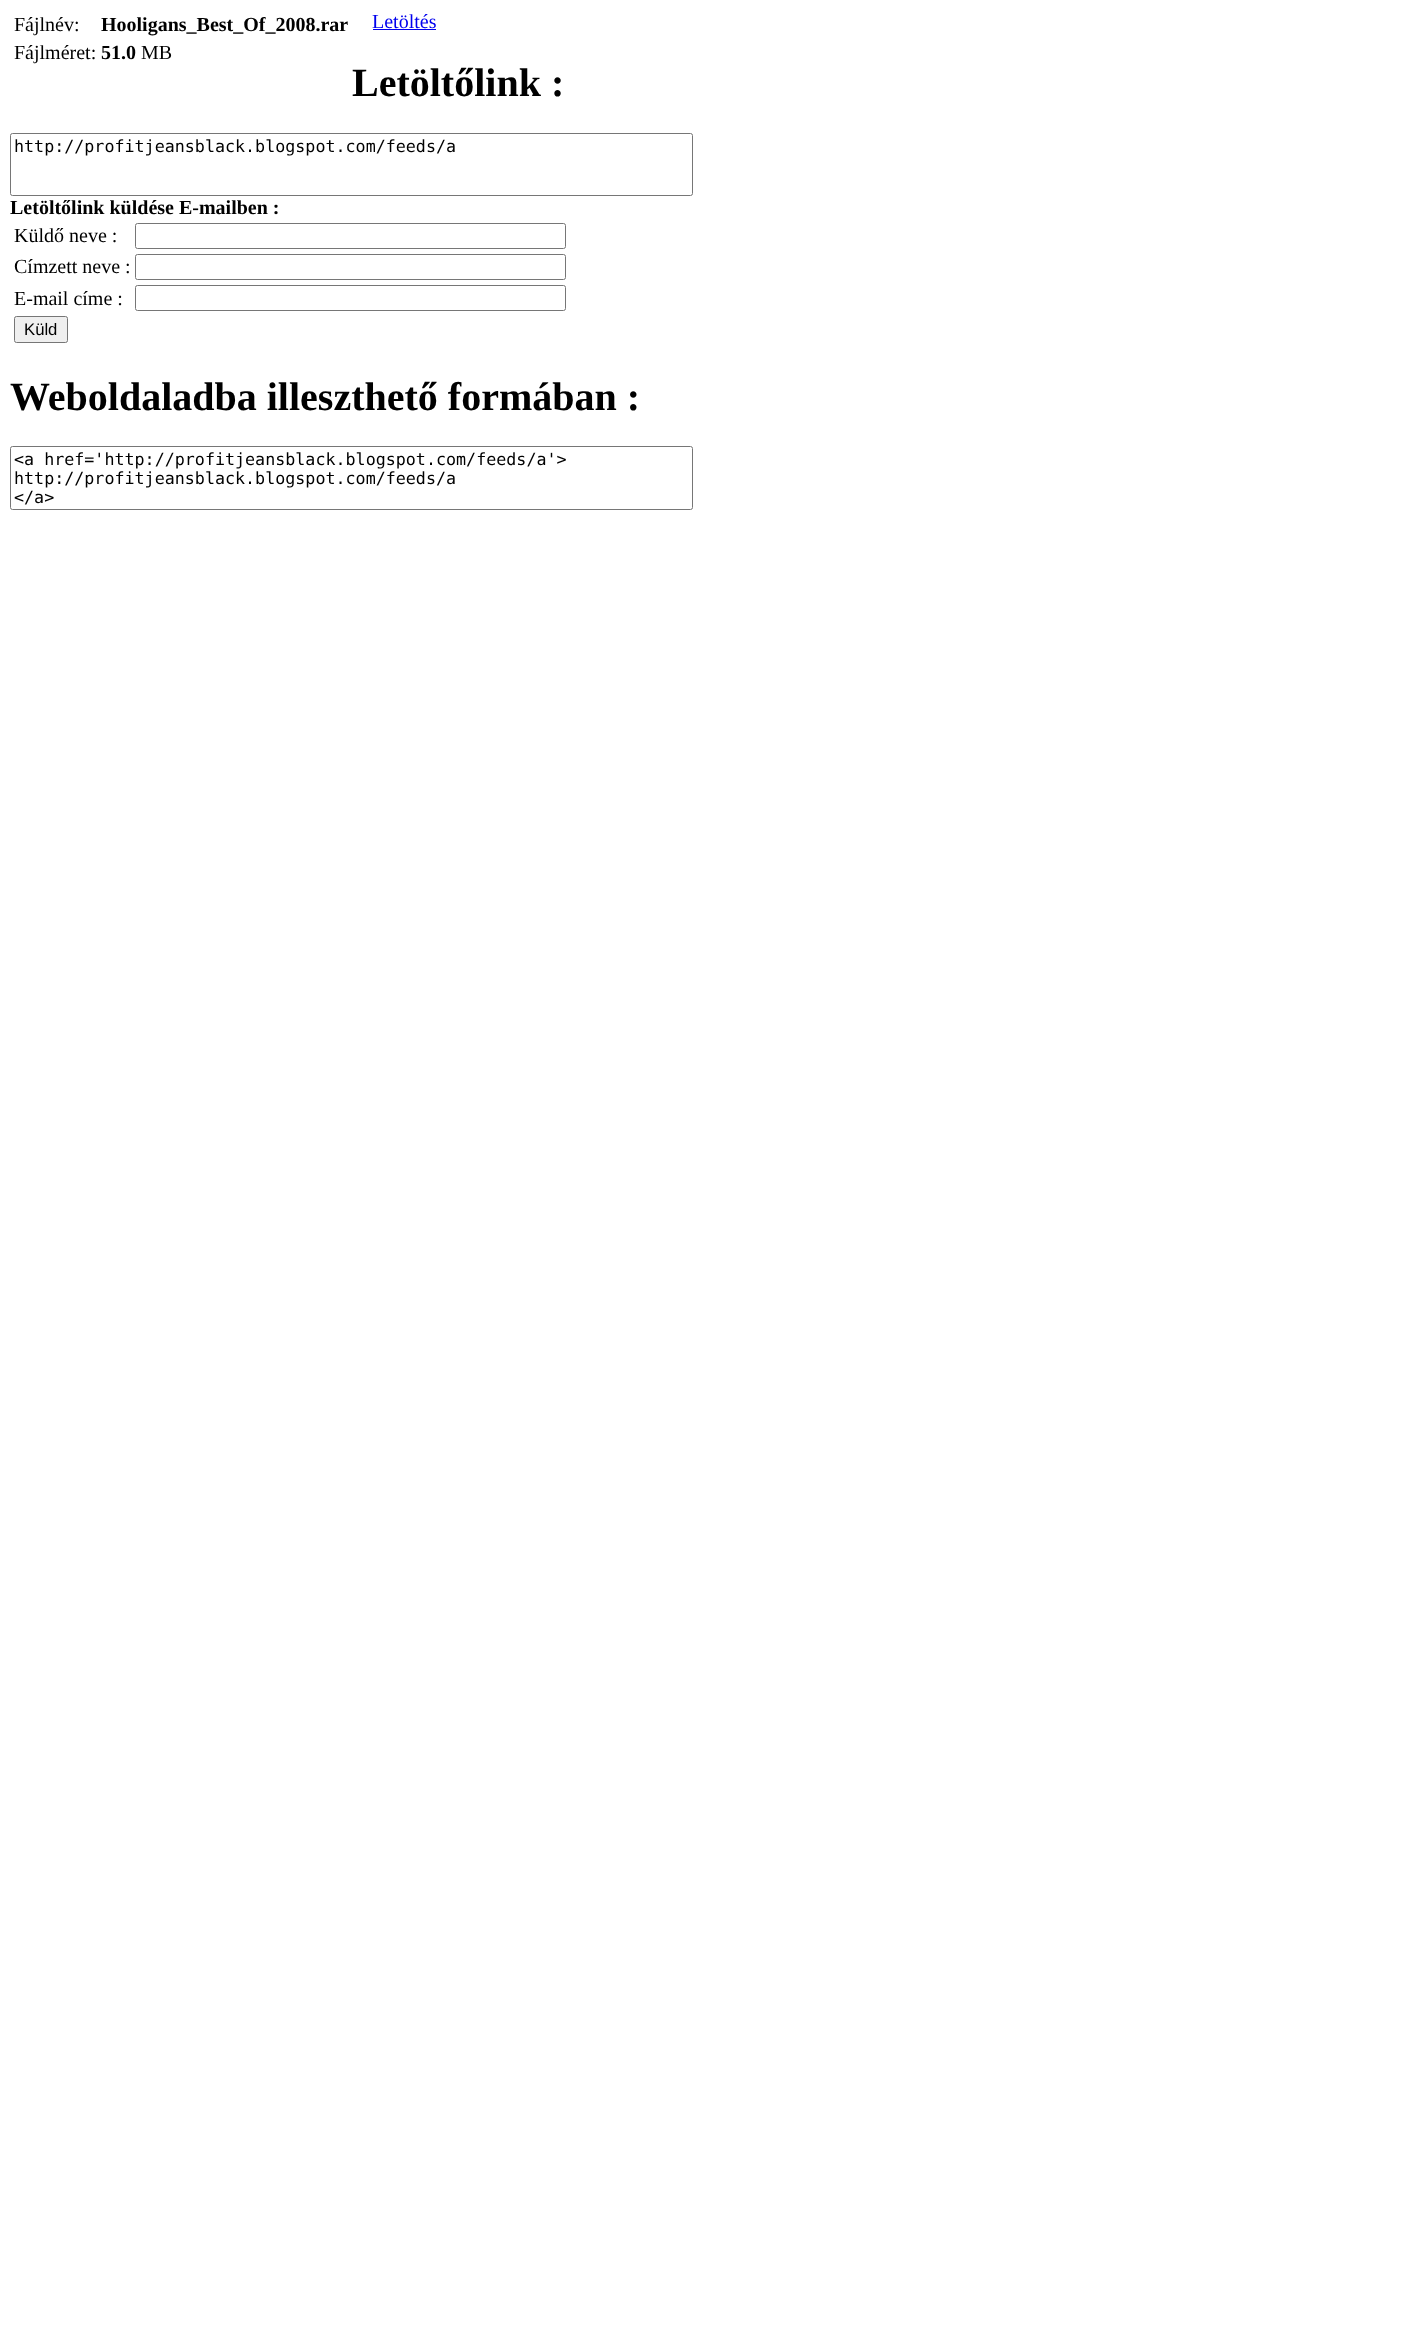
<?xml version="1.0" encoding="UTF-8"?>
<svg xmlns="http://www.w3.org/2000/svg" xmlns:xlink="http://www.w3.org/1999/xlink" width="1404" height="2349">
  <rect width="100%" height="100%" fill="#ffffff" />
  <rect x="373" y="29" width="63" height="1" fill="#0000ee" />
  <rect x="10.5" y="133.5" width="682" height="62" rx="2" fill="none" stroke="#767676" />
  <rect x="135.5" y="223.5" width="430" height="25" rx="2" fill="none" stroke="#767676" />
  <rect x="135.5" y="254.5" width="430" height="25" rx="2" fill="none" stroke="#767676" />
  <rect x="135.5" y="285.5" width="430" height="25" rx="2" fill="none" stroke="#767676" />
  <rect x="14.5" y="316.5" width="53" height="26" rx="2" fill="#efefef" stroke="#767676" />
  <rect x="10.5" y="446.5" width="682" height="63" rx="2" fill="none" stroke="#767676" />
  <text x="14" y="31" style="font-family: Liberation Serif; font-size: 20px; fill: #000000">Fájlnév:</text>
  <text x="101" y="31" style="font-family: Liberation Serif; font-size: 20px; font-weight: bold; fill: #000000">Hooligans_Best_Of_2008.rar</text>
  <text x="14" y="59" style="font-family: Liberation Serif; font-size: 20px; fill: #000000">Fájlméret:</text>
  <text x="101" y="59" style="font-family: Liberation Serif; font-size: 20px; font-weight: bold; fill: #000000">51.0</text>
  <text x="141" y="59" style="font-family: Liberation Serif; font-size: 20px; fill: #000000">MB</text>
  <text x="372" y="28" style="font-family: Liberation Serif; font-size: 20px; fill: #0000ee">Letöltés</text>
  <text x="352" y="96" style="font-family: Liberation Serif; font-size: 40px; font-weight: bold; fill: #000000">Letöltőlink :</text>
  <text x="14" y="152" style="font-family: DejaVu Sans Mono; font-size: 16.7px; fill: #000000">http://profitjeansblack.blogspot.com/feeds/a</text>
  <text x="10" y="214" style="font-family: Liberation Serif; font-size: 20px; font-weight: bold; fill: #000000">Letöltőlink küldése E-mailben :</text>
  <text x="14" y="242" style="font-family: Liberation Serif; font-size: 20px; fill: #000000">Küldő neve :</text>
  <text x="14" y="273" style="font-family: Liberation Serif; font-size: 20px; fill: #000000">Címzett neve :</text>
  <text x="14" y="305" style="font-family: Liberation Serif; font-size: 20px; fill: #000000">E-mail címe :</text>
  <text x="24" y="335" style="font-family: Liberation Sans; font-size: 16.7px; fill: #000000">Küld</text>
  <text x="10" y="410" style="font-family: Liberation Serif; font-size: 40px; font-weight: bold; fill: #000000">Weboldaladba illeszthető formában :</text>
  <text x="14" y="465" style="font-family: DejaVu Sans Mono; font-size: 16.7px; fill: #000000">&lt;a href='http://profitjeansblack.blogspot.com/feeds/a'&gt;</text>
  <text x="14" y="484" style="font-family: DejaVu Sans Mono; font-size: 16.7px; fill: #000000">http://profitjeansblack.blogspot.com/feeds/a</text>
  <text x="14" y="503" style="font-family: DejaVu Sans Mono; font-size: 16.7px; fill: #000000">&lt;/a&gt;</text>
</svg>
